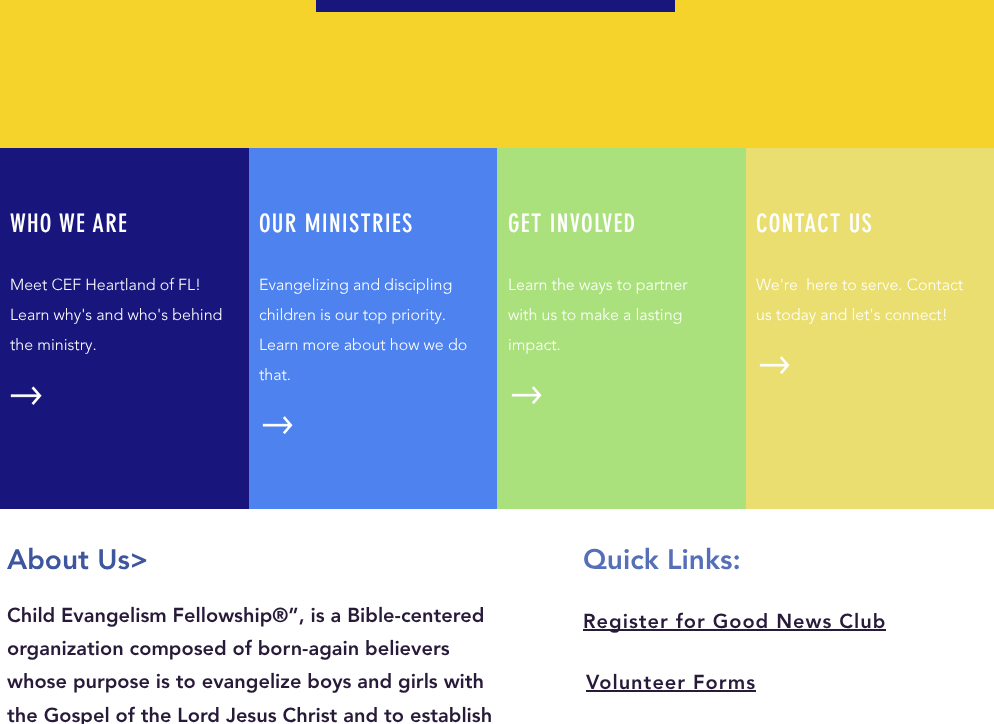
<?xml version="1.0" encoding="UTF-8"?>
<svg xmlns="http://www.w3.org/2000/svg" xmlns:xlink="http://www.w3.org/1999/xlink" width="994" height="724">
  <rect width="100%" height="100%" fill="#f5d32a" />
  <rect x="316" width="359" height="12" fill="#18157c" />
  <rect y="148" width="249" height="361" fill="#18157c" />
  <image x="10" y="386" width="32" height="19" xlink:href="image1.png" />
  <rect x="249" y="148" width="248" height="361" fill="#4d82ef" />
  <image x="262" y="416" width="31" height="18" xlink:href="image2.png" />
  <rect x="497" y="148" width="249" height="361" fill="#aae17d" />
  <image x="511" y="386" width="31" height="18" xlink:href="image3.png" />
  <rect x="746" y="148" width="248" height="361" fill="#eade71" />
  <image x="759" y="356" width="31" height="18" xlink:href="image4.png" />
  <rect y="509" width="994" height="215" fill="#ffffff" />
  <rect x="583" y="629" width="303" height="2" fill="#281a39" />
  <rect x="586" y="690" width="170" height="2" fill="#281a39" />
  <text x="10" y="232" style="font-family: 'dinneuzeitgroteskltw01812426'; font-size: 25px; letter-spacing: 1.25px; fill: #ffffff">WHO WE ARE</text>
  <text x="10" y="290" style="font-family: 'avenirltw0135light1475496'; font-size: 16px; font-weight: 300; fill: #ffffff">Meet CEF Heartland of FL!</text>
  <text x="10" y="320" style="font-family: 'avenirltw0135light1475496'; font-size: 16px; font-weight: 300; fill: #ffffff">Learn why's and who's behind</text>
  <text x="10" y="350" style="font-family: 'avenirltw0135light1475496'; font-size: 16px; font-weight: 300; fill: #ffffff">the ministry.</text>
  <text x="259" y="232" style="font-family: 'dinneuzeitgroteskltw01812426'; font-size: 25px; letter-spacing: 1.25px; fill: #ffffff">OUR MINISTRIES</text>
  <text x="259" y="290" style="font-family: 'avenirltw0135light1475496'; font-size: 16px; font-weight: 300; fill: #ffffff">Evangelizing and discipling</text>
  <text x="259" y="320" style="font-family: 'avenirltw0135light1475496'; font-size: 16px; font-weight: 300; fill: #ffffff">children is our top priority.</text>
  <text x="259" y="350" style="font-family: 'avenirltw0135light1475496'; font-size: 16px; font-weight: 300; fill: #ffffff">Learn more about how we do</text>
  <text x="259" y="380" style="font-family: 'avenirltw0135light1475496'; font-size: 16px; font-weight: 300; fill: #ffffff">that.</text>
  <text x="508" y="232" style="font-family: 'dinneuzeitgroteskltw01812426'; font-size: 25px; letter-spacing: 1.25px; fill: #ffffff">GET INVOLVED</text>
  <text x="508" y="290" style="font-family: 'avenirltw0135light1475496'; font-size: 16px; font-weight: 300; fill: #ffffff">Learn the ways to partner</text>
  <text x="508" y="320" style="font-family: 'avenirltw0135light1475496'; font-size: 16px; font-weight: 300; fill: #ffffff">with us to make a lasting</text>
  <text x="508" y="350" style="font-family: 'avenirltw0135light1475496'; font-size: 16px; font-weight: 300; fill: #ffffff">impact.</text>
  <text x="756" y="232" style="font-family: 'dinneuzeitgroteskltw01812426'; font-size: 25px; letter-spacing: 1.25px; fill: #ffffff">CONTACT US</text>
  <text x="756" y="290" style="font-family: 'avenirltw0135light1475496'; font-size: 16px; font-weight: 300; fill: #ffffff" xml:space="preserve">We're  here to serve. Contact</text>
  <text x="756" y="320" style="font-family: 'avenirltw0135light1475496'; font-size: 16px; font-weight: 300; fill: #ffffff">us today and let's connect!</text>
  <text x="7" y="569" style="font-family: 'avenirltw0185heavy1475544'; font-size: 28px; font-weight: 900; fill: #3e569e">About Us&gt;</text>
  <text x="583" y="569" style="font-family: 'avenirltw0185heavy1475544'; font-size: 28px; font-weight: 900; fill: #566fb8">Quick Links:</text>
  <text x="7" y="622" style="font-family: 'avenirltw0185heavy1475544'; font-size: 20px; font-weight: 900; fill: #281a39">Child Evangelism Fellowship®”, is a Bible-centered</text>
  <text x="7" y="655" style="font-family: 'avenirltw0185heavy1475544'; font-size: 20px; font-weight: 900; fill: #281a39">organization composed of born-again believers</text>
  <text x="7" y="688" style="font-family: 'avenirltw0185heavy1475544'; font-size: 20px; font-weight: 900; fill: #281a39">whose purpose is to evangelize boys and girls with</text>
  <text x="7" y="722" style="font-family: 'avenirltw0185heavy1475544'; font-size: 20px; font-weight: 900; fill: #281a39">the Gospel of the Lord Jesus Christ and to establish</text>
  <text x="583" y="628" style="font-family: 'avenirltw0185heavy1475544'; font-size: 20px; font-weight: 900; letter-spacing: 1px; fill: #281a39">Register for Good News Club</text>
  <text x="586" y="689" style="font-family: 'avenirltw0185heavy1475544'; font-size: 20px; font-weight: 900; letter-spacing: 1px; fill: #281a39">Volunteer Forms</text>
</svg>
